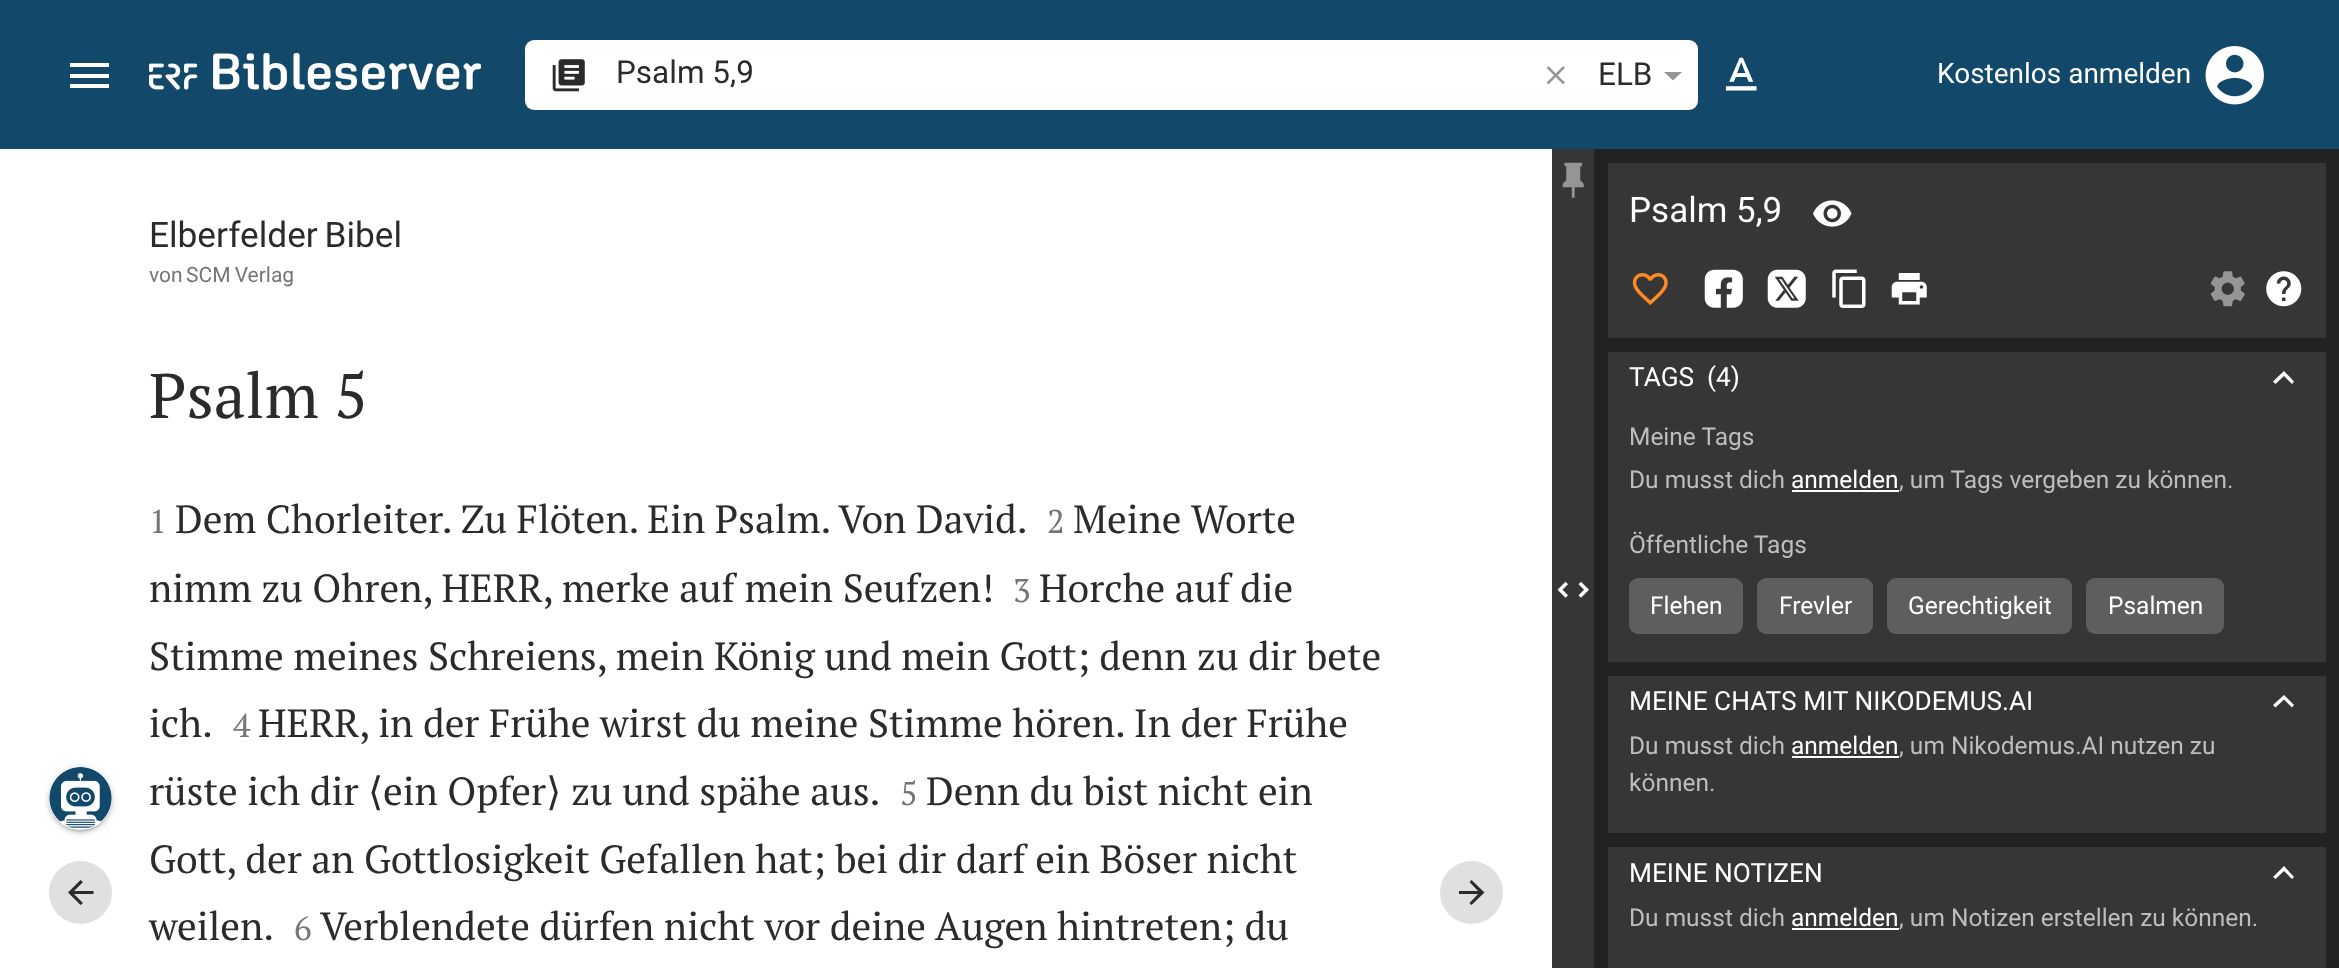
<?xml version="1.0" encoding="UTF-8"?>
<svg xmlns="http://www.w3.org/2000/svg" xmlns:xlink="http://www.w3.org/1999/xlink" width="2339" height="968">
  <rect width="100%" height="100%" fill="#ffffff" />
  <rect width="2339" height="149" fill="#12496a" />
  <rect x="70" y="63" width="39" height="4" fill="#ffffff" />
  <rect x="70" y="74" width="39" height="4" fill="#ffffff" />
  <rect x="70" y="84" width="39" height="4" fill="#ffffff" />
  <image x="149" y="53" width="332" height="37" xlink:href="image1.png" />
  <rect x="525" y="40" width="1173" height="70" rx="9" fill="#ffffff" />
  <image x="552" y="59" width="33" height="33" xlink:href="image2.png" />
  <image x="1546" y="66" width="19" height="19" xlink:href="image3.png" />
  <path d="M 1664 72 l 9 8.5 l 9 -8.5 z" fill="#959595" />
  <image x="1725" y="57" width="32" height="34" xlink:href="image4.png" />
  <image x="2205" y="46" width="59" height="59" xlink:href="image5.png" />
  <rect x="49" y="768" width="63" height="63" rx="31.5" fill="#000000" fill-opacity="0.12" filter="blur(4.5px)" />
  <rect x="49" y="770" width="63" height="63" rx="31.5" fill="#000000" fill-opacity="0.14" filter="blur(2px)" />
  <rect x="53" y="775" width="56" height="56" rx="28" fill="#000000" fill-opacity="0.2" filter="blur(1px)" />
  <circle cx="80.5" cy="798.5" r="31.5" fill="#ffffff" />
  <image x="49" y="767" width="63" height="63" xlink:href="image6.png" />
  <circle cx="80.5" cy="892.5" r="31.5" fill="#e0e0e0" />
  <path d="M 93.5 891 v 3 h -19.5 l 9 9 l -2.5 2 l -12.5 -12.5 l 12.5 -12.5 l 2.5 2 l -9 9 z" fill="#2b2b2b" />
  <circle cx="1471.5" cy="892.5" r="31.5" fill="#e0e0e0" />
  <path d="M 1459 891 v 3 h 19 l -8.5 9 l 2 2 l 13 -12.5 l -13 -12.5 l -2 2 l 8.5 9 z" fill="#2b2b2b" />
  <rect x="1552" y="149" width="42" height="819" fill="#363636" />
  <image x="1562" y="162" width="22" height="36" xlink:href="image7.png" />
  <image x="1557" y="581" width="32" height="17" xlink:href="image8.png" />
  <rect x="1594" y="149" width="745" height="819" fill="#222222" />
  <rect x="1608" y="163" width="718" height="175" fill="#363636" />
  <image x="1813" y="200" width="39" height="27" xlink:href="image9.png" />
  <image x="1632" y="273" width="36" height="32" xlink:href="image10.png" />
  <image x="1704" y="269" width="39" height="39" xlink:href="image11.png" />
  <image x="1767" y="269" width="39" height="39" xlink:href="image12.png" />
  <image x="1832" y="269" width="34" height="39" xlink:href="image13.png" />
  <image x="1891" y="273" width="36" height="32" xlink:href="image14.png" />
  <image x="2210" y="271" width="35" height="36" xlink:href="image15.png" />
  <image x="2266" y="271" width="36" height="36" xlink:href="image16.png" />
  <rect x="1608" y="352" width="718" height="310" fill="#363636" />
  <path d="M 2275.5 384 l 8.5 -8 l 8 8 l 2 -2.5 l -10 -10.5 l -11 10.5 z" fill="#ffffff" />
  <rect x="1792" y="490" width="107" height="2" fill="#ffffff" />
  <rect x="1629" y="578" width="114" height="56" rx="9" fill="#5e5e5e" />
  <rect x="1757" y="578" width="116" height="56" rx="9" fill="#5e5e5e" />
  <rect x="1887" y="578" width="185" height="56" rx="9" fill="#5e5e5e" />
  <rect x="2086" y="578" width="138" height="56" rx="9" fill="#5e5e5e" />
  <rect x="1608" y="676" width="718" height="157" fill="#363636" />
  <path d="M 2275.5 707.5 l 8.5 -8 l 8 8 l 2 -2.5 l -10 -10 l -11 10 z" fill="#ffffff" />
  <rect x="1792" y="756" width="107" height="2" fill="#ffffff" />
  <rect x="1608" y="847" width="718" height="121" fill="#363636" />
  <path d="M 2275.5 879 l 8.5 -8 l 8 8 l 2 -2 l -10 -11 l -11 11 z" fill="#ffffff" />
  <rect x="1792" y="928" width="107" height="2" fill="#ffffff" />
  <text x="616" y="83" style="font-family: Roboto; font-size: 31.5px; fill: #2b2b2b">Psalm 5,9</text>
  <text x="1598" y="85" style="font-family: Roboto; font-size: 31.5px; fill: #2b2b2b">ELB</text>
  <text x="1937" y="83" style="font-family: Roboto; font-size: 28px; fill: #ffffff">Kostenlos anmelden</text>
  <text x="149" y="247" word-spacing="-2" style="font-family: Roboto; font-size: 35.25px; fill: #2b2b2b">Elberfelder Bibel</text>
  <text x="149" y="282" style="font-family: Roboto; font-size: 21px; fill: #757575">von</text>
  <text x="186" y="282" word-spacing="-1" style="font-family: Roboto; font-size: 21px; fill: #757575">SCM Verlag</text>
  <text x="149" y="418" style="font-family: PT Serif; font-size: 63px; fill: #2b2b2b">Psalm 5</text>
  <text x="149" y="533" style="font-family: PT Serif; font-size: 33px; fill: #757575">1</text>
  <text x="175" y="533" style="font-family: PT Serif; font-size: 39.2px; fill: #2b2b2b">Dem Chorleiter. Zu Flöten. Ein Psalm. Von David.</text>
  <text x="1047" y="533" style="font-family: PT Serif; font-size: 33px; fill: #757575">2</text>
  <text x="1073" y="533" style="font-family: PT Serif; font-size: 39.2px; fill: #2b2b2b">Meine Worte</text>
  <text x="149" y="602" style="font-family: PT Serif; font-size: 39.2px; fill: #2b2b2b">nimm zu Ohren, HERR, merke auf mein Seufzen!</text>
  <text x="1013" y="602" style="font-family: PT Serif; font-size: 33px; fill: #757575">3</text>
  <text x="1039" y="602" style="font-family: PT Serif; font-size: 39.2px; fill: #2b2b2b">Horche auf die</text>
  <text x="149" y="670" style="font-family: PT Serif; font-size: 39.2px; fill: #2b2b2b">Stimme meines Schreiens, mein König und mein Gott; denn zu dir bete</text>
  <text x="149" y="737" style="font-family: PT Serif; font-size: 39.2px; fill: #2b2b2b">ich.</text>
  <text x="233" y="737" style="font-family: PT Serif; font-size: 33px; fill: #757575">4</text>
  <text x="258" y="737" style="font-family: PT Serif; font-size: 39.2px; fill: #2b2b2b">HERR, in der Frühe wirst du meine Stimme hören. In der Frühe</text>
  <text x="149" y="805" style="font-family: PT Serif; font-size: 39.2px; fill: #2b2b2b">rüste ich dir</text>
  <text x="368" y="805" style="font-family: DejaVu Sans; font-size: 39.2px; fill: #2b2b2b">⟨</text>
  <text x="383" y="805" style="font-family: PT Serif; font-size: 39.2px; fill: #2b2b2b">ein Opfer</text>
  <text x="546" y="805" style="font-family: DejaVu Sans; font-size: 39.2px; fill: #2b2b2b">⟩</text>
  <text x="571" y="805" style="font-family: PT Serif; font-size: 39.2px; fill: #2b2b2b">zu und spähe aus.</text>
  <text x="900" y="805" style="font-family: PT Serif; font-size: 33px; fill: #757575">5</text>
  <text x="926" y="805" style="font-family: PT Serif; font-size: 39.2px; fill: #2b2b2b">Denn du bist nicht ein</text>
  <text x="149" y="873" style="font-family: PT Serif; font-size: 39.2px; fill: #2b2b2b">Gott, der an Gottlosigkeit Gefallen hat; bei dir darf ein Böser nicht</text>
  <text x="149" y="940" style="font-family: PT Serif; font-size: 39.2px; fill: #2b2b2b">weilen.</text>
  <text x="294" y="940" style="font-family: PT Serif; font-size: 33px; fill: #757575">6</text>
  <text x="320" y="940" style="font-family: PT Serif; font-size: 39.2px; fill: #2b2b2b">Verblendete dürfen nicht vor deine Augen hintreten; du</text>
  <text x="1629" y="222" style="font-family: Roboto; font-size: 35px; fill: #ffffff">Psalm 5,9</text>
  <text x="1629" y="386" style="font-family: Roboto; font-size: 26.25px; fill: #ffffff">TAGS</text>
  <text x="1707" y="386" style="font-family: Roboto; font-size: 26.25px; fill: #ffffff">(4)</text>
  <text x="1629" y="445" style="font-family: Roboto; font-size: 24.5px; fill: #bdbdbd">Meine Tags</text>
  <text x="1629" y="488" style="font-family: Roboto; font-size: 24.5px; fill: #bdbdbd">Du musst dich</text>
  <text x="1791" y="488" style="font-family: Roboto; font-size: 24.5px; fill: #ffffff">anmelden</text>
  <text x="1899" y="488" style="font-family: Roboto; font-size: 24.5px; fill: #bdbdbd">, um Tags vergeben zu können.</text>
  <text x="1629" y="553" style="font-family: Roboto; font-size: 24.5px; fill: #bdbdbd">Öffentliche Tags</text>
  <text x="1650" y="614" style="font-family: Roboto; font-size: 24.5px; fill: #ffffff">Flehen</text>
  <text x="1779" y="614" style="font-family: Roboto; font-size: 24.5px; fill: #ffffff">Frevler</text>
  <text x="1908" y="614" style="font-family: Roboto; font-size: 24.5px; fill: #ffffff">Gerechtigkeit</text>
  <text x="2108" y="614" style="font-family: Roboto; font-size: 24.5px; fill: #ffffff">Psalmen</text>
  <text x="1629" y="710" style="font-family: Roboto; font-size: 26.25px; fill: #ffffff">MEINE CHATS MIT NIKODEMUS.AI</text>
  <text x="1629" y="754" style="font-family: Roboto; font-size: 24.5px; fill: #bdbdbd">Du musst dich</text>
  <text x="1791" y="754" style="font-family: Roboto; font-size: 24.5px; fill: #ffffff">anmelden</text>
  <text x="1899" y="754" style="font-family: Roboto; font-size: 24.5px; fill: #bdbdbd">, um Nikodemus.AI nutzen zu</text>
  <text x="1629" y="791" style="font-family: Roboto; font-size: 24.5px; fill: #bdbdbd">können.</text>
  <text x="1629" y="882" style="font-family: Roboto; font-size: 26.25px; fill: #ffffff">MEINE NOTIZEN</text>
  <text x="1629" y="926" style="font-family: Roboto; font-size: 24.5px; fill: #bdbdbd">Du musst dich</text>
  <text x="1791" y="926" style="font-family: Roboto; font-size: 24.5px; fill: #ffffff">anmelden</text>
  <text x="1899" y="926" style="font-family: Roboto; font-size: 24.5px; fill: #bdbdbd">, um Notizen erstellen zu können.</text>
</svg>
